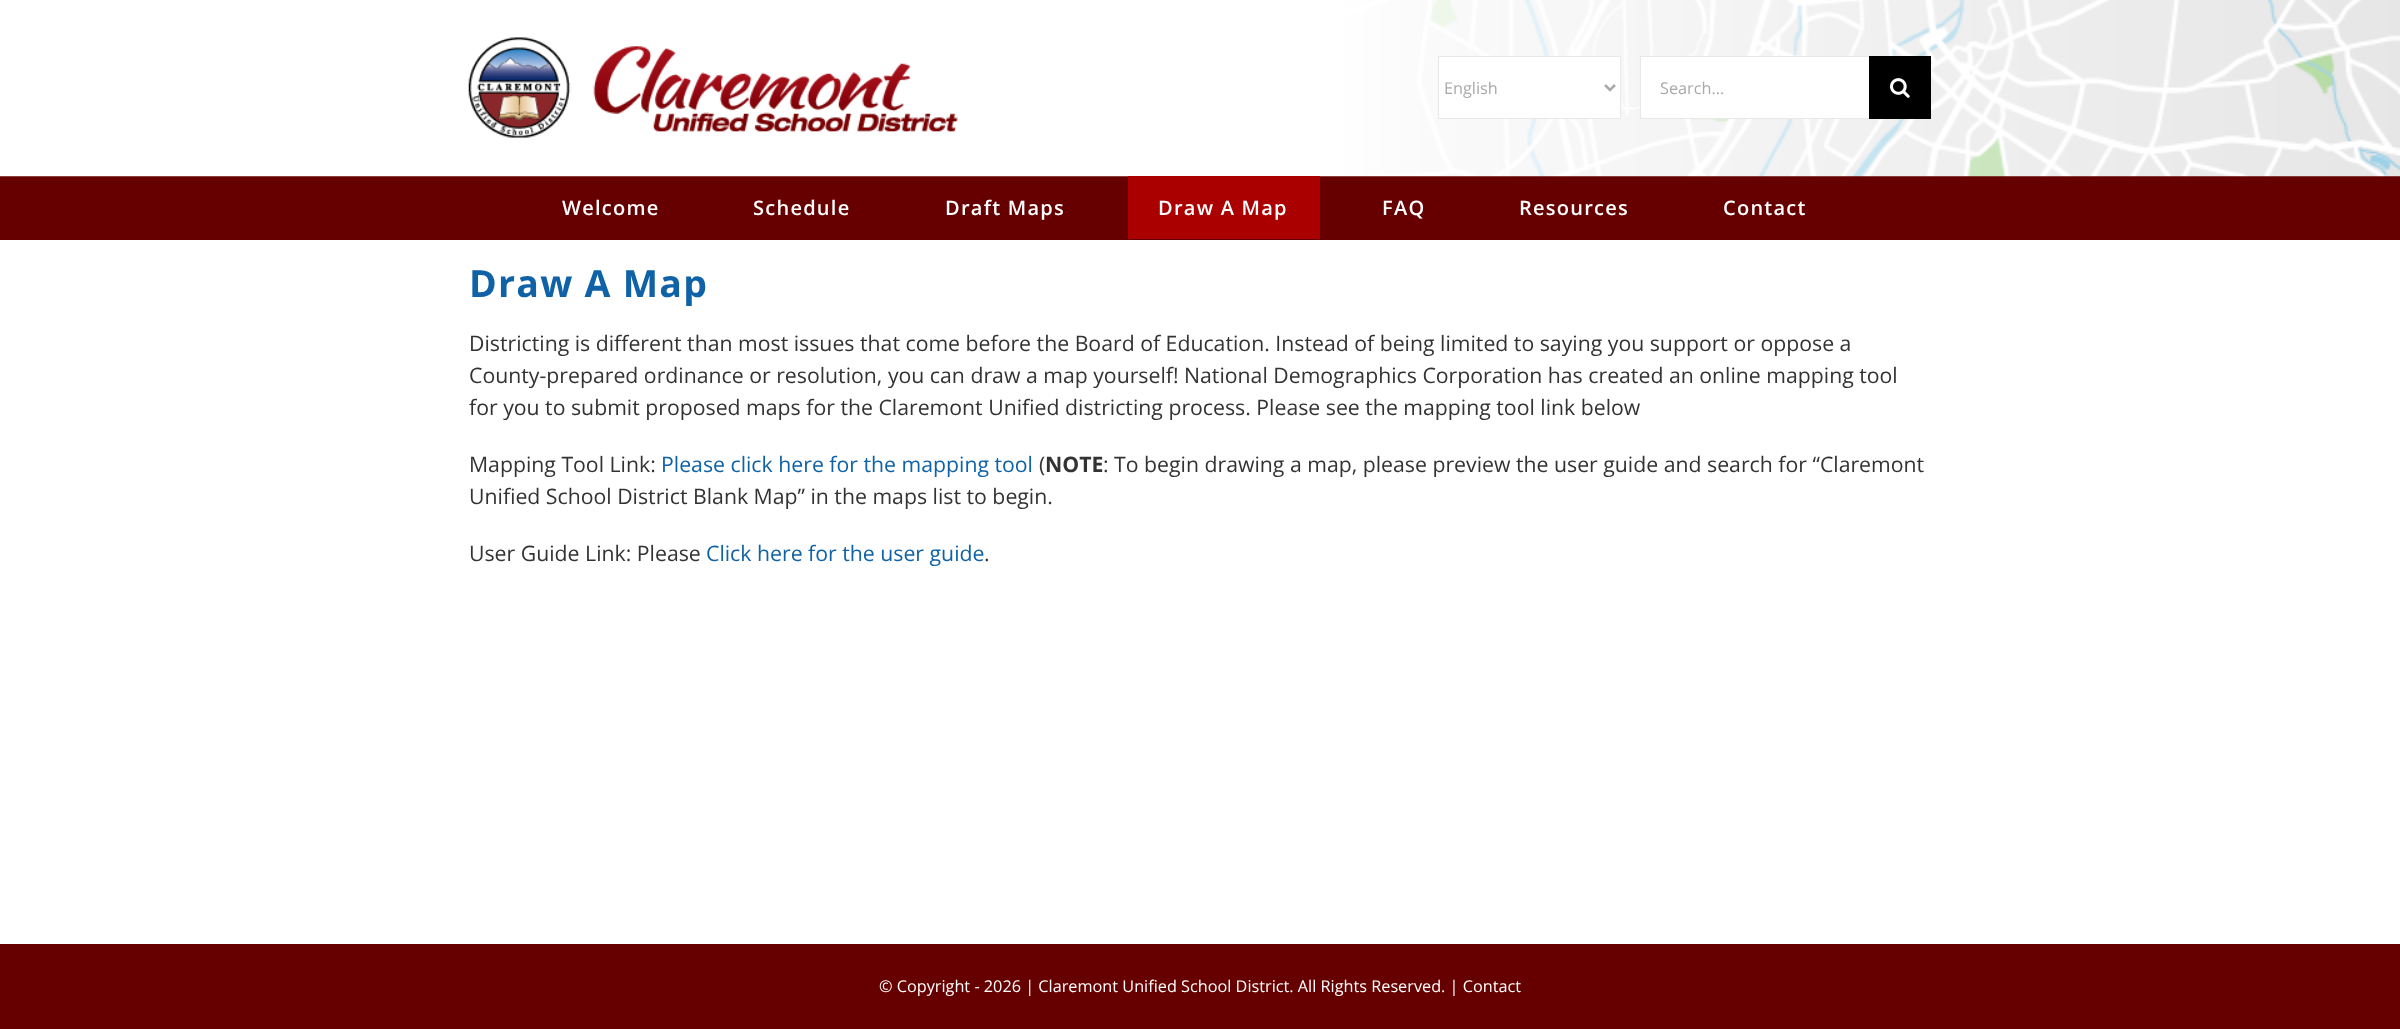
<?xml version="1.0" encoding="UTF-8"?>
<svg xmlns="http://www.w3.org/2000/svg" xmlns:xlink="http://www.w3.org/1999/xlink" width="2400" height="1029">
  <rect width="100%" height="100%" fill="#ffffff" />
  <rect y="176" width="2400" height="64" fill="#660000" />
  <image x="0" y="0" width="2400" height="177" xlink:href="image1.png" />
  <image x="468" y="37" width="490" height="101" xlink:href="image2.png" />
  <rect x="1438.5" y="56.5" width="182" height="62" fill="#ffffff" stroke="#e8e8e8" />
  <path d="M 1605 85 l 5 5 l 5 -5" fill="none" stroke="#aaa9a9" stroke-width="2.5" />
  <rect x="1641" y="57" width="228" height="61" fill="#ffffff" />
  <rect x="1640" y="56" width="229" height="1" fill="#e8e8e8" />
  <rect x="1640" y="118" width="229" height="1" fill="#e8e8e8" />
  <rect x="1640" y="56" width="1" height="63" fill="#e8e8e8" />
  <rect x="1869" y="56" width="62" height="63" fill="#000000" />
  <image x="1890" y="78" width="20" height="20" xlink:href="image3.png" />
  <rect x="1128" y="176" width="192" height="63" fill="#aa0000" />
  <rect y="944" width="2400" height="85" fill="#660000" />
  <text x="1444" y="94" style="font-family: Open Sans; font-size: 16.25px; fill: #aaa9a9">English</text>
  <text x="1660" y="94" style="font-family: Open Sans; font-size: 16.25px; fill: #aaa9a9">Search...</text>
  <text x="562" y="215" style="font-family: Open Sans; font-size: 20px; font-weight: 600; letter-spacing: 1.25px; fill: #ffffff">Welcome</text>
  <text x="753" y="215" style="font-family: Open Sans; font-size: 20px; font-weight: 600; letter-spacing: 1.25px; fill: #ffffff">Schedule</text>
  <text x="945" y="215" style="font-family: Open Sans; font-size: 20px; font-weight: 600; letter-spacing: 1.25px; fill: #ffffff">Draft Maps</text>
  <text x="1158" y="215" style="font-family: Open Sans; font-size: 20px; font-weight: 600; letter-spacing: 1.25px; fill: #ffffff">Draw A Map</text>
  <text x="1382" y="215" style="font-family: Open Sans; font-size: 20px; font-weight: 600; letter-spacing: 1.25px; fill: #ffffff">FAQ</text>
  <text x="1519" y="215" style="font-family: Open Sans; font-size: 20px; font-weight: 600; letter-spacing: 1.25px; fill: #ffffff">Resources</text>
  <text x="1723" y="215" style="font-family: Open Sans; font-size: 20px; font-weight: 600; letter-spacing: 1.25px; fill: #ffffff">Contact</text>
  <text x="469" y="297" style="font-family: Open Sans; font-size: 37.5px; font-weight: bold; letter-spacing: 1.25px; fill: #0f62a6">Draw A Map</text>
  <text x="469" y="351" style="font-family: Open Sans; font-size: 21.25px; fill: #333333">Districting is different than most issues that come before the Board of Education. Instead of being limited to saying you support or oppose a</text>
  <text x="469" y="383" style="font-family: Open Sans; font-size: 21.25px; fill: #333333">County-prepared ordinance or resolution, you can draw a map yourself! National Demographics Corporation has created an online mapping tool</text>
  <text x="469" y="415" style="font-family: Open Sans; font-size: 21.25px; fill: #333333">for you to submit proposed maps for the Claremont Unified districting process. Please see the mapping tool link below</text>
  <text x="469" y="472" style="font-family: Open Sans; font-size: 21.25px; fill: #333333">Mapping Tool Link:</text>
  <text x="661" y="472" style="font-family: Open Sans; font-size: 21.25px; fill: #0f62a6">Please click here for the mapping tool</text>
  <text x="1039" y="472" style="font-family: Open Sans; font-size: 21.25px; fill: #333333">(</text>
  <text x="1045" y="472" style="font-family: Open Sans; font-size: 21.25px; font-weight: bold; fill: #333333">NOTE</text>
  <text x="1103" y="472" style="font-family: Open Sans; font-size: 21.25px; fill: #333333">: To begin drawing a map, please preview the user guide and search for “Claremont</text>
  <text x="469" y="504" style="font-family: Open Sans; font-size: 21.25px; fill: #333333">Unified School District Blank Map” in the maps list to begin.</text>
  <text x="469" y="561" style="font-family: Open Sans; font-size: 21.25px; fill: #333333">User Guide Link: Please</text>
  <text x="706" y="561" style="font-family: Open Sans; font-size: 21.25px; fill: #0f62a6">Click here for the user guide</text>
  <text x="984" y="561" style="font-family: Open Sans; font-size: 21.25px; fill: #333333">.</text>
  <text x="879" y="992" style="font-family: Open Sans; font-size: 16.25px; fill: #ffffff">© Copyright - 2026 | Claremont Unified School District. All Rights Reserved. | Contact</text>
</svg>
